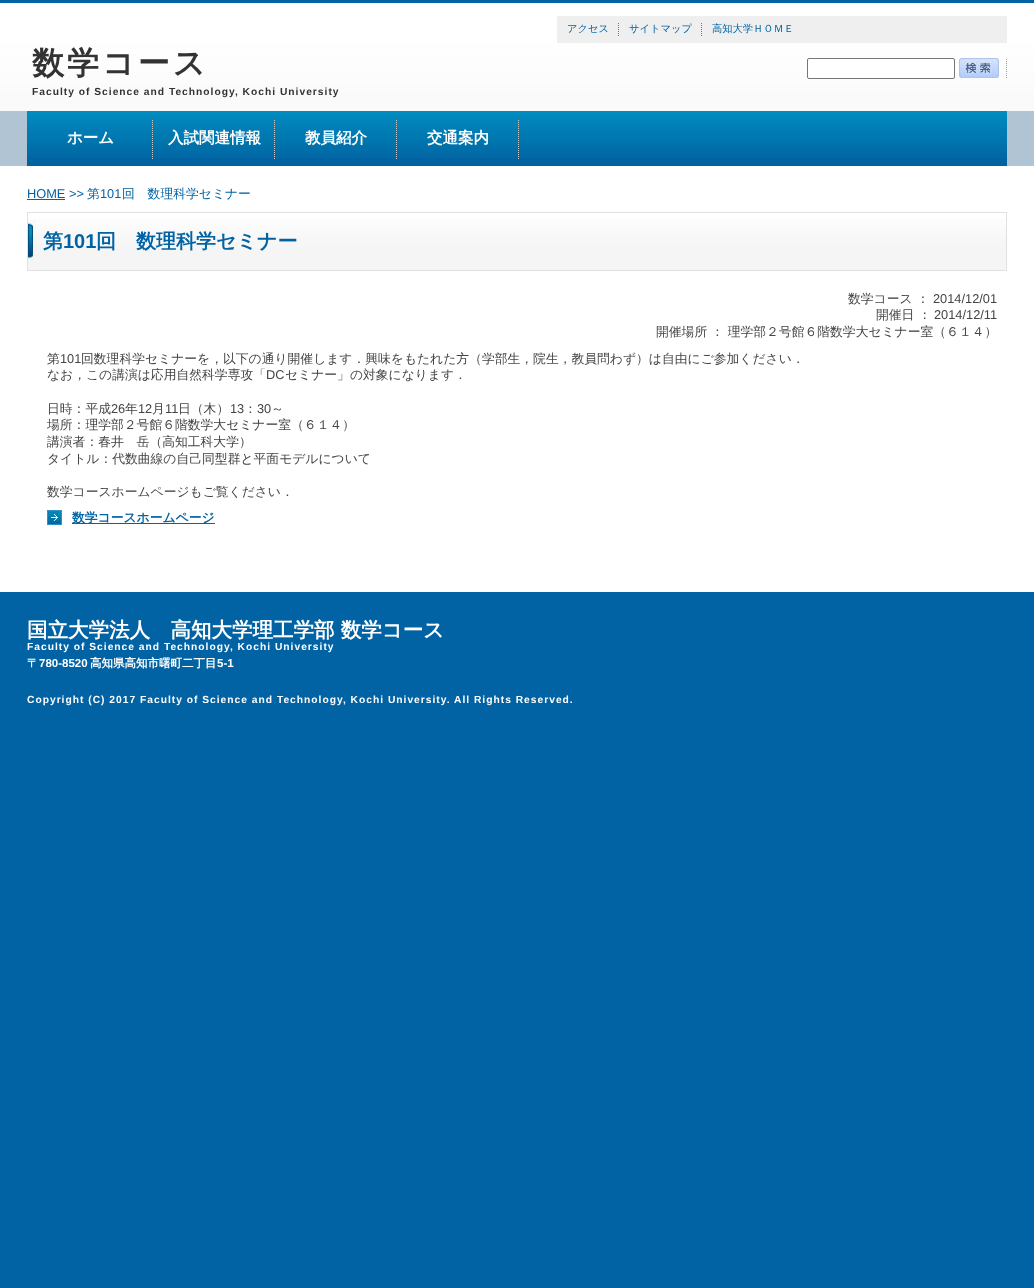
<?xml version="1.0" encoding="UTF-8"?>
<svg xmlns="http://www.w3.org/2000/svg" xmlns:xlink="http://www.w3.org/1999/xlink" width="1034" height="1288">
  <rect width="100%" height="100%" fill="#0163a4" />
  <image x="0" y="3" width="1034" height="108" xlink:href="image1.png" />
  <rect x="557" y="16" width="450" height="27" fill="#efefef" />
  <image x="618" y="23" width="1" height="13" xlink:href="image2.png" />
  <image x="701" y="23" width="1" height="13" xlink:href="image2.png" />
  <image x="1006" y="59" width="1" height="19" xlink:href="image3.png" />
  <rect x="807.5" y="58.5" width="147" height="20" rx="1.5" fill="#ffffff" stroke="#767676" />
  <image x="959" y="58" width="40" height="20" xlink:href="image4.png" />
  <rect y="111" width="1034" height="55" fill="#b0c4d3" />
  <rect x="27" y="158" width="980" height="8" fill="#0062a1" />
  <image x="27" y="111" width="980" height="47" xlink:href="image5.png" />
  <image x="152" y="120" width="1" height="39" xlink:href="image6.png" />
  <image x="274" y="120" width="1" height="39" xlink:href="image6.png" />
  <image x="396" y="120" width="1" height="39" xlink:href="image6.png" />
  <image x="518" y="120" width="1" height="39" xlink:href="image6.png" />
  <rect y="166" width="1034" height="426" fill="#ffffff" />
  <rect x="27" y="199" width="38" height="1" fill="#0264a5" />
  <image x="28" y="219" width="978" height="51" xlink:href="image7.png" />
  <rect x="27.5" y="212.5" width="979" height="58" fill="none" stroke="#e1e1e1" />
  <image x="47" y="510" width="15" height="15" xlink:href="image8.png" />
  <rect x="72" y="523" width="143" height="1" fill="#0163a4" />
  <text x="567" y="32" style="font-family: WenQuanYi Zen Hei; font-size: 10.25px; font-weight: 500; fill: #0163a4">アクセス</text>
  <text x="629" y="32" style="font-family: WenQuanYi Zen Hei; font-size: 10.25px; font-weight: 500; fill: #0163a4">サイトマップ</text>
  <text x="712" y="32" style="font-family: WenQuanYi Zen Hei; font-size: 10.25px; font-weight: 500; fill: #0163a4">高知大学ＨＯＭＥ</text>
  <text x="32" y="74" style="font-family: WenQuanYi Zen Hei; font-size: 32px; font-weight: bold; letter-spacing: 3px; fill: #333333">数学コース</text>
  <text x="32" y="95" style="font-family: Liberation Sans; font-size: 10.25px; font-weight: bold; letter-spacing: 1px; fill: #333333">Faculty of Science and Technology, Kochi University</text>
  <text x="67" y="143" style="font-family: WenQuanYi Zen Hei; font-size: 15.5px; font-weight: bold; fill: #ffffff">ホーム</text>
  <text x="168" y="143" style="font-family: WenQuanYi Zen Hei; font-size: 15.5px; font-weight: bold; fill: #ffffff">入試関連情報</text>
  <text x="305" y="143" style="font-family: WenQuanYi Zen Hei; font-size: 15.5px; font-weight: bold; fill: #ffffff">教員紹介</text>
  <text x="427" y="143" style="font-family: WenQuanYi Zen Hei; font-size: 15.5px; font-weight: bold; fill: #ffffff">交通案内</text>
  <text x="27" y="198" style="font-family: Liberation Sans; font-size: 12.8px; fill: #0163a4">HOME &gt;&gt;</text>
  <text x="87" y="198" style="font-family: WenQuanYi Zen Hei; font-size: 12.8px; font-weight: 500; fill: #0163a4">第</text>
  <text x="100" y="198" style="font-family: Liberation Sans; font-size: 12.8px; fill: #0163a4">101</text>
  <text x="122" y="198" style="font-family: WenQuanYi Zen Hei; font-size: 12.8px; font-weight: 500; fill: #0163a4">回　数理科学セミナー</text>
  <text x="43" y="248" style="font-family: WenQuanYi Zen Hei; font-size: 20px; font-weight: bold; fill: #0163a4">第</text>
  <text x="63" y="248" style="font-family: Liberation Sans; font-size: 20px; font-weight: bold; fill: #0163a4">101</text>
  <text x="96" y="248" style="font-family: WenQuanYi Zen Hei; font-size: 20px; font-weight: bold; fill: #0163a4">回　数理科学セミナー</text>
  <text x="848" y="303" style="font-family: WenQuanYi Zen Hei; font-size: 12.8px; font-weight: 500; fill: #444444">数学コース ：</text>
  <text x="933" y="303" style="font-family: Liberation Sans; font-size: 12.8px; fill: #444444">2014/12/01</text>
  <text x="876" y="319" style="font-family: WenQuanYi Zen Hei; font-size: 12.8px; font-weight: 500; fill: #444444">開催日 ：</text>
  <text x="934" y="319" style="font-family: Liberation Sans; font-size: 12.8px; fill: #444444">2014/12/11</text>
  <text x="656" y="336" style="font-family: WenQuanYi Zen Hei; font-size: 12.8px; font-weight: 500; fill: #444444">開催場所 ： 理学部２号館６階数学大セミナー室（６１４）</text>
  <text x="47" y="363" style="font-family: WenQuanYi Zen Hei; font-size: 12.8px; font-weight: 500; fill: #444444">第</text>
  <text x="60" y="363" style="font-family: Liberation Sans; font-size: 12.8px; fill: #444444">101</text>
  <text x="81" y="363" style="font-family: WenQuanYi Zen Hei; font-size: 12.8px; font-weight: 500; fill: #444444">回数理科学セミナーを，以下の通り開催します．興味をもたれた方（学部生，院生，教員問わず）は自由にご参加ください．</text>
  <text x="47" y="379" style="font-family: WenQuanYi Zen Hei; font-size: 12.8px; font-weight: 500; fill: #444444">なお，この講演は応用自然科学専攻「</text>
  <text x="266" y="379" style="font-family: Liberation Sans; font-size: 12.8px; fill: #444444">DC</text>
  <text x="285" y="379" style="font-family: WenQuanYi Zen Hei; font-size: 12.8px; font-weight: 500; fill: #444444">セミナー」の対象になります．</text>
  <text x="47" y="413" style="font-family: WenQuanYi Zen Hei; font-size: 12.8px; font-weight: 500; fill: #444444">日時：平成</text>
  <text x="111" y="413" style="font-family: Liberation Sans; font-size: 12.8px; fill: #444444">26</text>
  <text x="125" y="413" style="font-family: WenQuanYi Zen Hei; font-size: 12.8px; font-weight: 500; fill: #444444">年</text>
  <text x="138" y="413" style="font-family: Liberation Sans; font-size: 12.8px; fill: #444444">12</text>
  <text x="152" y="413" style="font-family: WenQuanYi Zen Hei; font-size: 12.8px; font-weight: 500; fill: #444444">月</text>
  <text x="165" y="413" style="font-family: Liberation Sans; font-size: 12.8px; fill: #444444">11</text>
  <text x="178" y="413" style="font-family: WenQuanYi Zen Hei; font-size: 12.8px; font-weight: 500; fill: #444444">日（木）</text>
  <text x="230" y="413" style="font-family: Liberation Sans; font-size: 12.8px; fill: #444444">13</text>
  <text x="244" y="413" style="font-family: WenQuanYi Zen Hei; font-size: 12.8px; font-weight: 500; fill: #444444">：</text>
  <text x="257" y="413" style="font-family: Liberation Sans; font-size: 12.8px; fill: #444444">30</text>
  <text x="271" y="413" style="font-family: WenQuanYi Zen Hei; font-size: 12.8px; font-weight: 500; fill: #444444">～</text>
  <text x="47" y="429" style="font-family: WenQuanYi Zen Hei; font-size: 12.8px; font-weight: 500; fill: #444444">場所：理学部２号館６階数学大セミナー室（６１４）</text>
  <text x="47" y="446" style="font-family: WenQuanYi Zen Hei; font-size: 12.8px; font-weight: 500; fill: #444444">講演者：春井　岳（高知工科大学）</text>
  <text x="47" y="463" style="font-family: WenQuanYi Zen Hei; font-size: 12.8px; font-weight: 500; fill: #444444">タイトル：代数曲線の自己同型群と平面モデルについて</text>
  <text x="47" y="496" style="font-family: WenQuanYi Zen Hei; font-size: 12.8px; font-weight: 500; fill: #444444">数学コースホームページもご覧ください．</text>
  <text x="72" y="522" style="font-family: WenQuanYi Zen Hei; font-size: 12.8px; font-weight: bold; fill: #0163a4">数学コースホームページ</text>
  <text x="27" y="637" style="font-family: WenQuanYi Zen Hei; font-size: 20.5px; font-weight: bold; fill: #ffffff">国立大学法人　高知大学理工学部 数学コース</text>
  <text x="27" y="650" style="font-family: Liberation Sans; font-size: 10.25px; font-weight: bold; letter-spacing: 1px; fill: #ffffff">Faculty of Science and Technology, Kochi University</text>
  <text x="27" y="667" style="font-family: WenQuanYi Zen Hei; font-size: 11.5px; font-weight: bold; fill: #ffffff">〒</text>
  <text x="39" y="667" style="font-family: Liberation Sans; font-size: 11.5px; font-weight: bold; fill: #ffffff">780-8520</text>
  <text x="90" y="667" style="font-family: WenQuanYi Zen Hei; font-size: 11.5px; font-weight: bold; fill: #ffffff">高知県高知市曙町二丁目</text>
  <text x="217" y="667" style="font-family: Liberation Sans; font-size: 11.5px; font-weight: bold; fill: #ffffff">5-1</text>
  <text x="27" y="703" style="font-family: Liberation Sans; font-size: 10.25px; font-weight: bold; letter-spacing: 1px; fill: #ffffff">Copyright (C) 2017 Faculty of Science and Technology, Kochi University. All Rights Reserved.</text>
</svg>
